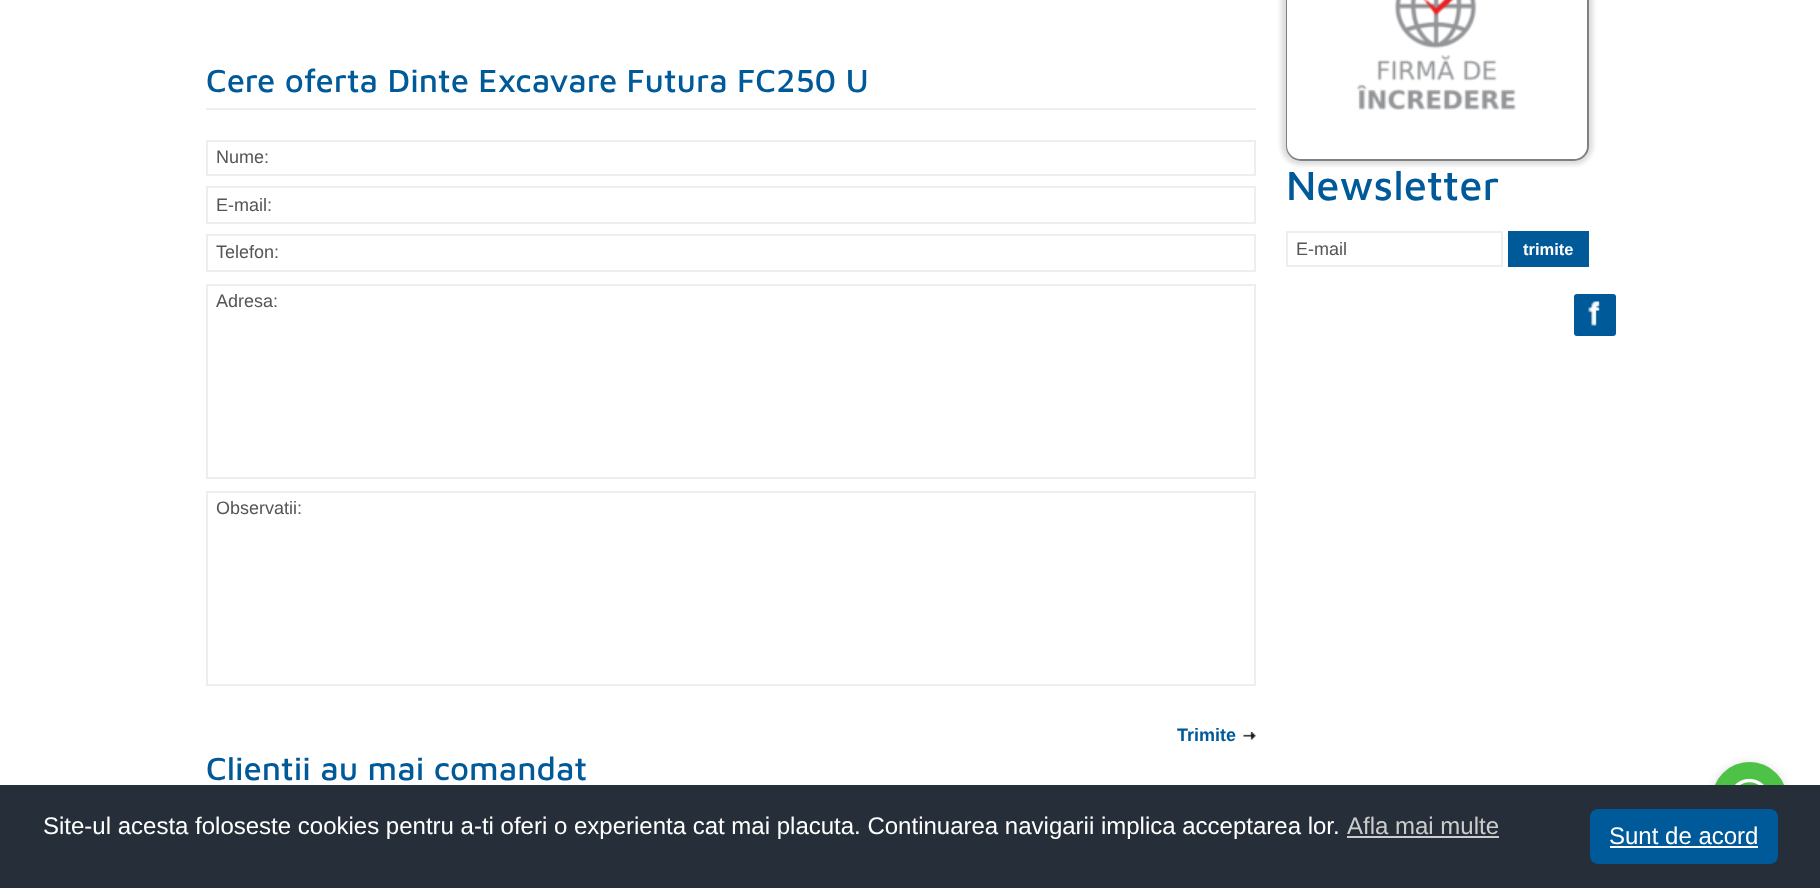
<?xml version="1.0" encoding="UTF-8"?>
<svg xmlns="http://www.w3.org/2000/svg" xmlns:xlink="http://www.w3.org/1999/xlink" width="1820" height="888">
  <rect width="100%" height="100%" fill="#ffffff" />
  <rect x="206" y="108" width="1050" height="2" fill="#eeeeee" />
  <rect x="207" y="141" width="1048" height="34" fill="none" stroke="#eeeeee" stroke-width="2" />
  <rect x="207" y="187" width="1048" height="36" fill="none" stroke="#eeeeee" stroke-width="2" />
  <rect x="207" y="235" width="1048" height="36" fill="none" stroke="#eeeeee" stroke-width="2" />
  <rect x="207" y="285" width="1048" height="193" fill="none" stroke="#eeeeee" stroke-width="2" />
  <rect x="207" y="492" width="1048" height="193" fill="none" stroke="#eeeeee" stroke-width="2" />
  <image x="1243" y="732" width="13" height="8" xlink:href="image1.png" />
  <rect x="1281" y="-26" width="312" height="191" rx="20" fill="#dddddd" filter="blur(2px)" />
  <rect x="1287" y="-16" width="301" height="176" rx="14" fill="none" stroke="#808080" stroke-width="2" />
  <image x="1287" y="0" width="300" height="159" xlink:href="image2.png" />
  <rect x="1287" y="232" width="215" height="34" fill="none" stroke="#eeeeee" stroke-width="2" />
  <rect x="1508" y="231" width="81" height="36" fill="#005999" />
  <rect x="1574" y="294" width="42" height="42" rx="3" fill="#005999" />
  <image x="1588" y="301" width="12" height="25" xlink:href="image3.png" />
  <rect x="1712" y="764" width="75" height="75" rx="37.5" fill="#888888" fill-opacity="0.4" filter="blur(5px)" />
  <circle cx="1749.5" cy="799.5" r="37.5" fill="#4dc247" />
  <image x="1735" y="778" width="29" height="7" xlink:href="image4.png" />
  <rect y="785" width="1820" height="103" fill="#252e39" />
  <rect x="1347" y="836" width="152" height="2" fill="#cccccc" />
  <rect x="1590" y="809" width="188" height="55" rx="8" fill="#005999" />
  <rect x="1610" y="846" width="148" height="2" fill="#ffffff" />
  <text x="206" y="92" style="font-family: Maven Pro; font-size: 33px; font-weight: 500; fill: #005999">Cere oferta Dinte Excavare Futura FC250 U</text>
  <text x="216" y="163" style="font-family: Liberation Sans; font-size: 18px; fill: #555555">Nume:</text>
  <text x="216" y="211" style="font-family: Liberation Sans; font-size: 18px; fill: #555555">E-mail:</text>
  <text x="216" y="258" style="font-family: Liberation Sans; font-size: 18px; fill: #555555">Telefon:</text>
  <text x="216" y="307" style="font-family: Liberation Sans; font-size: 18px; fill: #555555">Adresa:</text>
  <text x="216" y="514" style="font-family: Liberation Sans; font-size: 18px; fill: #555555">Observatii:</text>
  <text x="1177" y="741" style="font-family: Liberation Sans; font-size: 18px; font-weight: bold; fill: #005999">Trimite</text>
  <text x="206" y="780" style="font-family: Maven Pro; font-size: 33px; font-weight: 500; fill: #005999">Clientii au mai comandat</text>
  <text x="1286" y="200" style="font-family: Maven Pro; font-size: 42px; font-weight: 500; fill: #005999">Newsletter</text>
  <text x="1296" y="255" style="font-family: Liberation Sans; font-size: 18px; fill: #555555">E-mail</text>
  <text x="1523" y="255" style="font-family: Liberation Sans; font-size: 16.5px; font-weight: bold; fill: #ffffff">trimite</text>
  <text x="43" y="834" style="font-family: Liberation Sans; font-size: 24px; fill: #ffffff">Site-ul acesta foloseste cookies pentru a-ti oferi o experienta cat mai placuta. Continuarea navigarii implica acceptarea lor.</text>
  <text x="1347" y="834" style="font-family: Liberation Sans; font-size: 24px; fill: #cccccc">Afla mai multe</text>
  <text x="1609" y="844" style="font-family: Liberation Sans; font-size: 24px; fill: #ffffff">Sunt de acord</text>
</svg>
